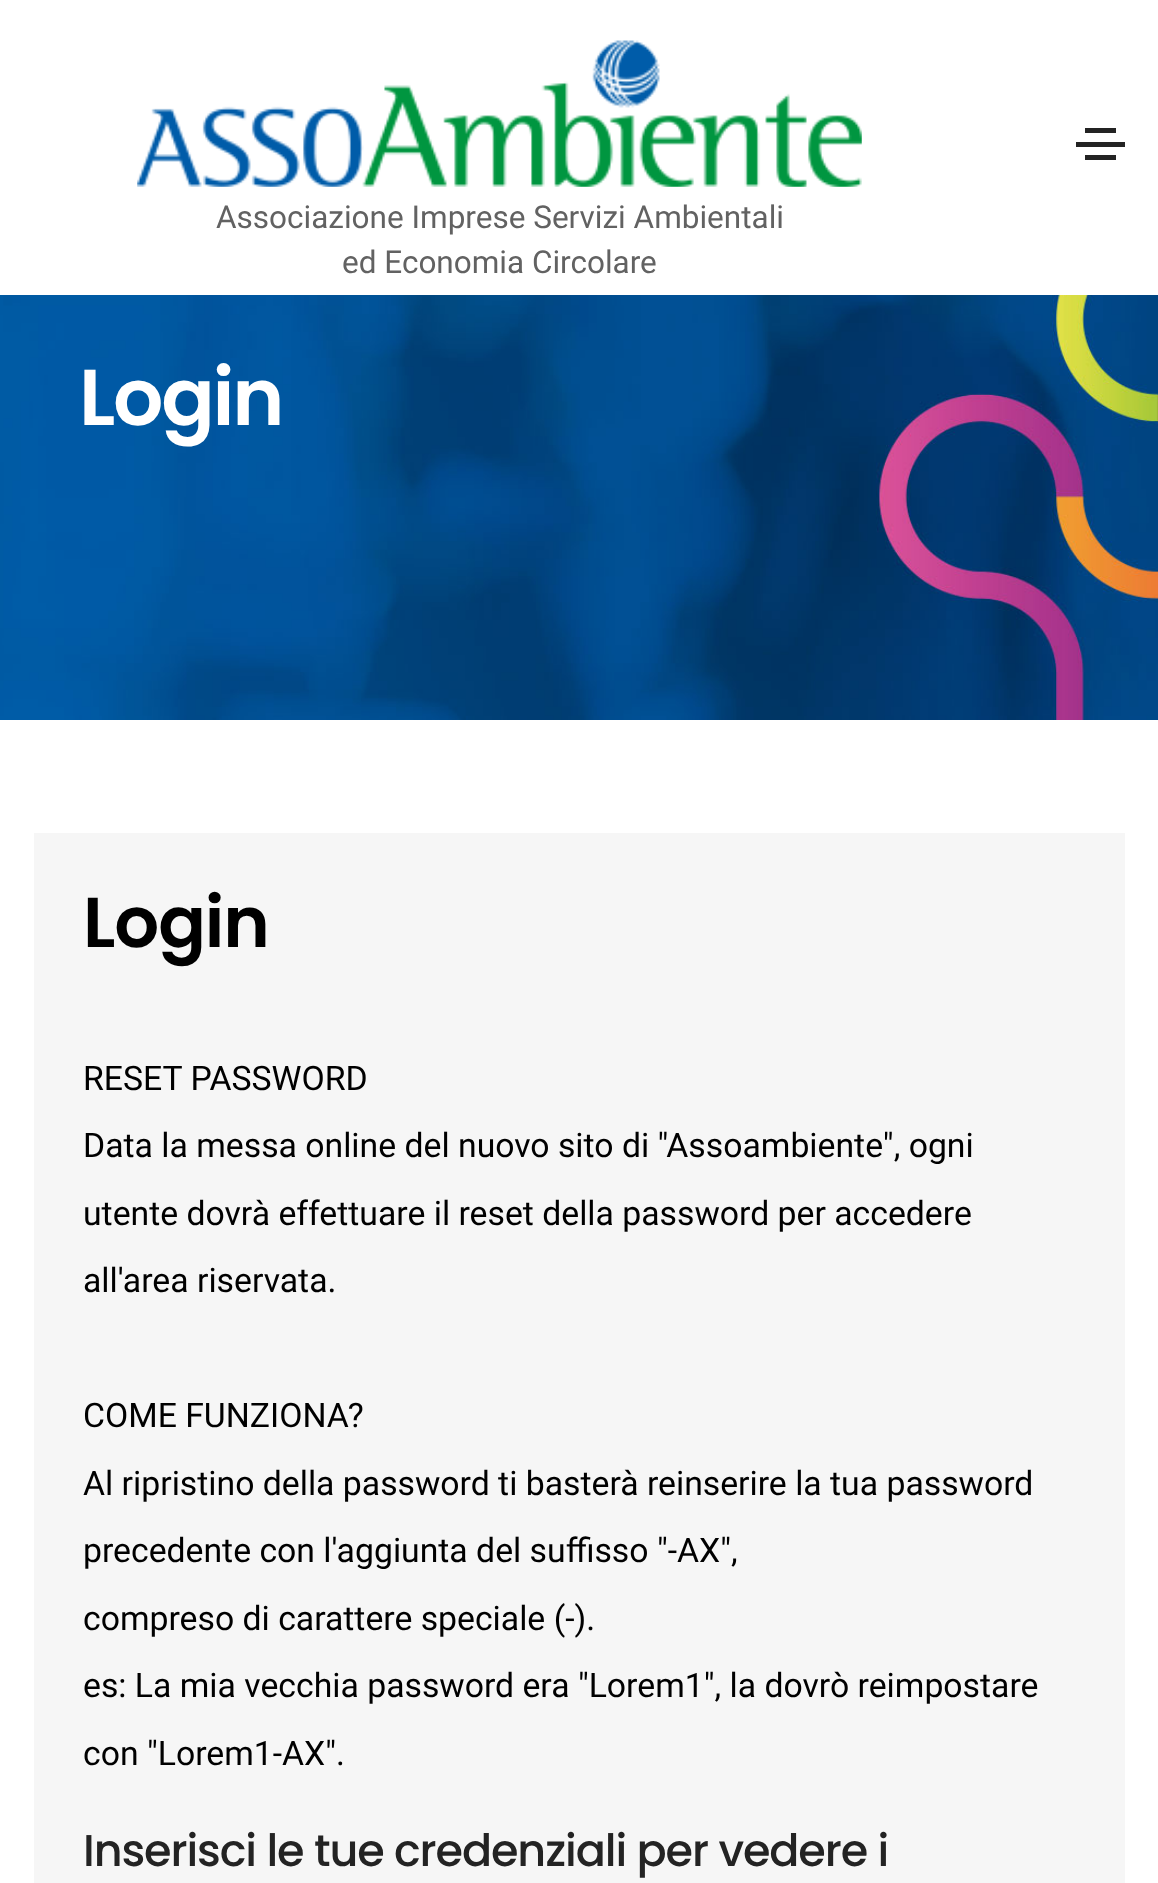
<?xml version="1.0" encoding="UTF-8"?>
<svg xmlns="http://www.w3.org/2000/svg" xmlns:xlink="http://www.w3.org/1999/xlink" width="1158" height="1883">
  <rect width="100%" height="100%" fill="#ffffff" />
  <rect x="1085" y="128" width="31" height="5" fill="#232323" />
  <rect x="1076" y="142" width="49" height="5" fill="#232323" />
  <rect x="1085" y="155" width="31" height="5" fill="#232323" />
  <image x="137" y="40" width="725" height="147" xlink:href="image1.png" />
  <image x="0" y="295" width="1158" height="425" xlink:href="image2.png" />
  <rect x="34" y="833" width="1091" height="1050" fill="#f6f6f6" />
  <text x="216" y="228" style="font-family: Roboto; font-size: 31.5px; fill: #626262">Associazione Imprese Servizi Ambientali</text>
  <text x="342" y="273" style="font-family: Roboto; font-size: 31.5px; fill: #626262">ed Economia Circolare</text>
  <text x="79" y="425" style="font-family: Poppins; font-size: 79px; font-weight: 600; letter-spacing: -2.25px; fill: #ffffff">Login</text>
  <text x="83" y="947" style="font-family: Poppins; font-size: 70.5px; font-weight: 600; letter-spacing: -1.1px; fill: #000000">Login</text>
  <text x="83" y="1090" style="font-family: Roboto; font-size: 33.75px; fill: #000000">RESET PASSWORD</text>
  <text x="83" y="1157" style="font-family: Roboto; font-size: 33.75px; fill: #000000">Data la messa online del nuovo sito di "Assoambiente", ogni</text>
  <text x="83" y="1225" style="font-family: Roboto; font-size: 33.75px; fill: #000000">utente dovrà effettuare il reset della password per accedere</text>
  <text x="83" y="1292" style="font-family: Roboto; font-size: 33.75px; fill: #000000">all'area riservata.</text>
  <text x="83" y="1427" style="font-family: Roboto; font-size: 33.75px; fill: #000000">COME FUNZIONA?</text>
  <text x="83" y="1495" style="font-family: Roboto; font-size: 33.75px; fill: #000000">Al ripristino della password ti basterà reinserire la tua password</text>
  <text x="83" y="1562" style="font-family: Roboto; font-size: 33.75px; fill: #000000">precedente con l'aggiunta del suffisso "-AX",</text>
  <text x="83" y="1630" style="font-family: Roboto; font-size: 33.75px; fill: #000000">compreso di carattere speciale (-).</text>
  <text x="83" y="1697" style="font-family: Roboto; font-size: 33.75px; fill: #000000">es: La mia vecchia password era "Lorem1", la dovrò reimpostare</text>
  <text x="83" y="1765" style="font-family: Roboto; font-size: 33.75px; fill: #000000">con "Lorem1-AX".</text>
  <text x="83" y="1866" style="font-family: Poppins; font-size: 44.5px; font-weight: 500; letter-spacing: -1.1px; fill: #232323">Inserisci le tue credenziali per vedere i</text>
</svg>
